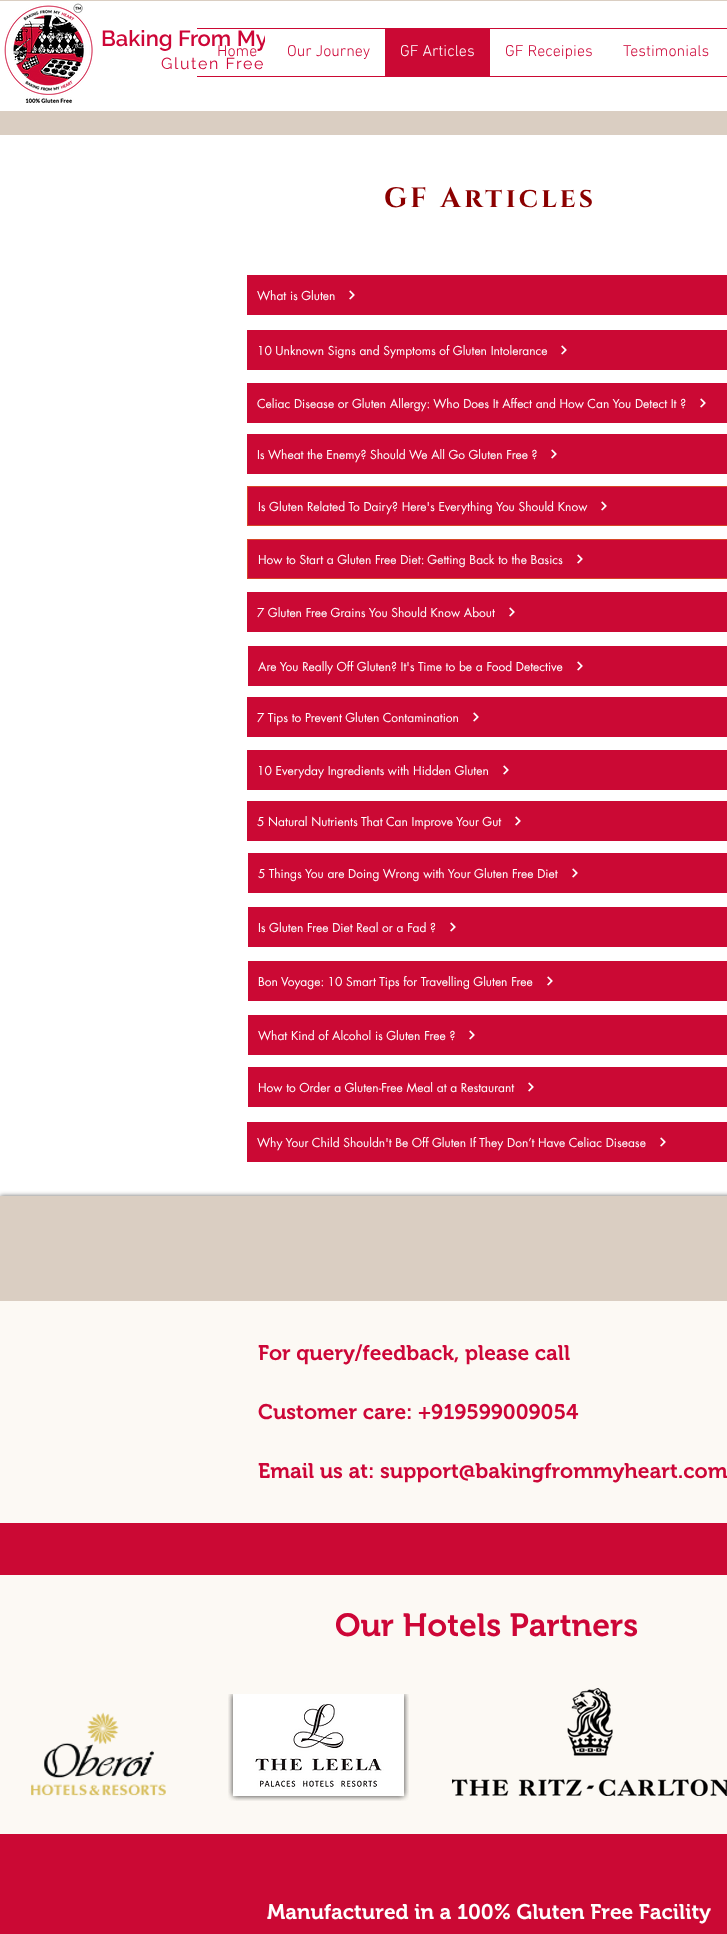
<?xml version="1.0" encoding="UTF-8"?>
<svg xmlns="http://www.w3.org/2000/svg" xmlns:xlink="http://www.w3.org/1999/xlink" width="727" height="1934">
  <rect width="100%" height="100%" fill="#dacec2" />
  <rect y="1" width="265" height="110" fill="#ffffff" />
  <image x="4" y="3" width="89" height="101" xlink:href="image1.png" />
  <rect y="135" width="727" height="1061" fill="#ffffff" />
  <rect x="247" y="275" width="480" height="40" fill="#cb0934" />
  <image x="349" y="290" width="6" height="10" xlink:href="image2.png" />
  <rect x="247" y="330" width="480" height="40" fill="#cb0934" />
  <image x="561" y="345" width="6" height="10" xlink:href="image2.png" />
  <rect x="247" y="383" width="480" height="40" fill="#cb0934" />
  <image x="700" y="398" width="6" height="10" xlink:href="image2.png" />
  <rect x="247" y="434" width="480" height="40" fill="#cb0934" />
  <image x="551" y="449" width="6" height="10" xlink:href="image2.png" />
  <rect x="247.5" y="486.5" width="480" height="39" fill="#cb0934" stroke="#d74628" />
  <image x="601" y="501" width="6" height="10" xlink:href="image2.png" />
  <rect x="247.5" y="539.5" width="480" height="39" fill="#cb0934" stroke="#d74628" />
  <image x="577" y="554" width="6" height="10" xlink:href="image2.png" />
  <rect x="247" y="592" width="480" height="40" fill="#cb0934" />
  <image x="509" y="607" width="6" height="10" xlink:href="image2.png" />
  <rect x="248" y="646" width="479" height="40" fill="#cb0934" />
  <image x="577" y="661" width="6" height="10" xlink:href="image2.png" />
  <rect x="247" y="697" width="480" height="40" fill="#cb0934" />
  <image x="473" y="712" width="6" height="10" xlink:href="image2.png" />
  <rect x="247" y="750" width="480" height="40" fill="#cb0934" />
  <image x="503" y="765" width="6" height="10" xlink:href="image2.png" />
  <rect x="247" y="801" width="480" height="40" fill="#cb0934" />
  <image x="515" y="816" width="6" height="10" xlink:href="image2.png" />
  <rect x="248" y="853" width="479" height="40" fill="#cb0934" />
  <image x="572" y="868" width="6" height="10" xlink:href="image2.png" />
  <rect x="248" y="907" width="479" height="40" fill="#cb0934" />
  <image x="450" y="922" width="6" height="10" xlink:href="image2.png" />
  <rect x="248" y="961" width="479" height="40" fill="#cb0934" />
  <image x="547" y="976" width="6" height="10" xlink:href="image2.png" />
  <rect x="248" y="1015" width="479" height="40" fill="#cb0934" />
  <image x="469" y="1030" width="6" height="10" xlink:href="image2.png" />
  <rect x="248" y="1067" width="479" height="40" fill="#cb0934" />
  <image x="528" y="1082" width="6" height="10" xlink:href="image2.png" />
  <rect x="247" y="1122" width="480" height="40" fill="#cb0934" />
  <image x="660" y="1137" width="6" height="10" xlink:href="image2.png" />
  <rect y="1196" width="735" height="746" fill="#000000" fill-opacity="0.6" filter="blur(2.5px)" />
  <rect y="1523" width="727" height="411" fill="#cb0934" />
  <rect y="1196" width="727" height="105" fill="#dacec2" />
  <rect y="1301" width="727" height="222" fill="#fcf9f4" />
  <rect y="1575" width="727" height="259" fill="#fcf9f4" />
  <image x="31" y="1712" width="135" height="84" xlink:href="image3.png" />
  <image x="228" y="1694" width="181" height="107" xlink:href="image4.png" />
  <image x="452" y="1688" width="275" height="108" xlink:href="image5.png" />
  <text x="101" y="46" style="font-family: Raleway; font-size: 22px; font-weight: 600; fill: #cd0637">Baking From My</text>
  <text x="161" y="69" style="font-family: Raleway; font-size: 16px; letter-spacing: 1.6px; fill: #cd0637">Gluten Free</text>
  <rect x="265" y="1" width="462" height="110" fill="#ffffff" />
  <rect x="197" y="28" width="530" height="1" fill="#cb0934" />
  <rect x="197" y="76" width="530" height="1" fill="#cb0934" />
  <text x="217" y="56" style="font-family: 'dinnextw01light'; font-size: 16px; font-weight: 300; fill: #cd0637">Home</text>
  <text x="287" y="56" style="font-family: 'dinnextw01light'; font-size: 16px; font-weight: 300; fill: #cd0637">Our Journey</text>
  <rect x="385" y="29" width="105" height="47" fill="#cb0934" />
  <text x="400" y="56" style="font-family: 'dinnextw01light'; font-size: 16px; font-weight: 300; fill: #ffffff">GF Articles</text>
  <text x="505" y="56" style="font-family: 'dinnextw01light'; font-size: 16px; font-weight: 300; fill: #cd0637">GF Receipies</text>
  <text x="623" y="56" style="font-family: 'dinnextw01light'; font-size: 16px; font-weight: 300; fill: #cd0637">Testimonials</text>
  <text x="384" y="207" style="font-family: Cinzel; font-size: 28px; font-weight: bold; letter-spacing: 3.4px; fill: #8b0000">GF Articles</text>
  <text x="257" y="300" style="font-family: futura; font-size: 12px; fill: #ffffff">What is Gluten</text>
  <text x="257" y="355" style="font-family: futura; font-size: 12px; fill: #ffffff">10 Unknown Signs and Symptoms of Gluten Intolerance</text>
  <text x="257" y="408" style="font-family: futura; font-size: 12px; fill: #ffffff">Celiac Disease or Gluten Allergy: Who Does It Affect and How Can You Detect It ?</text>
  <text x="257" y="459" style="font-family: futura; font-size: 12px; fill: #ffffff">Is Wheat the Enemy? Should We All Go Gluten Free ?</text>
  <text x="258" y="511" style="font-family: futura; font-size: 12px; fill: #ffffff">Is Gluten Related To Dairy? Here's Everything You Should Know</text>
  <text x="258" y="564" style="font-family: futura; font-size: 12px; fill: #ffffff">How to Start a Gluten Free Diet: Getting Back to the Basics</text>
  <text x="257" y="617" style="font-family: futura; font-size: 12px; fill: #ffffff">7 Gluten Free Grains You Should Know About</text>
  <text x="258" y="671" style="font-family: futura; font-size: 12px; fill: #ffffff">Are You Really Off Gluten? It's Time to be a Food Detective</text>
  <text x="257" y="722" style="font-family: futura; font-size: 12px; fill: #ffffff">7 Tips to Prevent Gluten Contamination</text>
  <text x="257" y="775" style="font-family: futura; font-size: 12px; fill: #ffffff">10 Everyday Ingredients with Hidden Gluten</text>
  <text x="257" y="826" style="font-family: futura; font-size: 12px; fill: #ffffff">5 Natural Nutrients That Can Improve Your Gut</text>
  <text x="258" y="878" style="font-family: futura; font-size: 12px; fill: #ffffff">5 Things You are Doing Wrong with Your Gluten Free Diet</text>
  <text x="258" y="932" style="font-family: futura; font-size: 12px; fill: #ffffff">Is Gluten Free Diet Real or a Fad ?</text>
  <text x="258" y="986" style="font-family: futura; font-size: 12px; fill: #ffffff">Bon Voyage: 10 Smart Tips for Travelling Gluten Free</text>
  <text x="258" y="1040" style="font-family: futura; font-size: 12px; fill: #ffffff">What Kind of Alcohol is Gluten Free ?</text>
  <text x="258" y="1092" style="font-family: futura; font-size: 12px; fill: #ffffff">How to Order a Gluten-Free Meal at a Restaurant</text>
  <text x="257" y="1147" style="font-family: futura; font-size: 12px; fill: #ffffff">Why Your Child Shouldn't Be Off Gluten If They Don’t Have Celiac Disease</text>
  <text x="258" y="1360" style="font-family: 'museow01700'; font-size: 21px; font-weight: 600; fill: #cd0637">For query/feedback, please call</text>
  <text x="258" y="1419" style="font-family: 'museow01700'; font-size: 21px; font-weight: 600; fill: #cd0637">Customer care: +919599009054</text>
  <text x="258" y="1478" style="font-family: 'museow01700'; font-size: 21px; font-weight: 600; fill: #cd0637">Email us at: support@bakingfrommyheart.com</text>
  <text x="335" y="1636" style="font-family: 'museow01700'; font-size: 32px; font-weight: 600; fill: #cd0637">Our Hotels Partners</text>
  <text x="267" y="1919" style="font-family: 'museow01700'; font-size: 21px; font-weight: 600; fill: #ffffff">Manufactured in a 100% Gluten Free Facility</text>
</svg>
